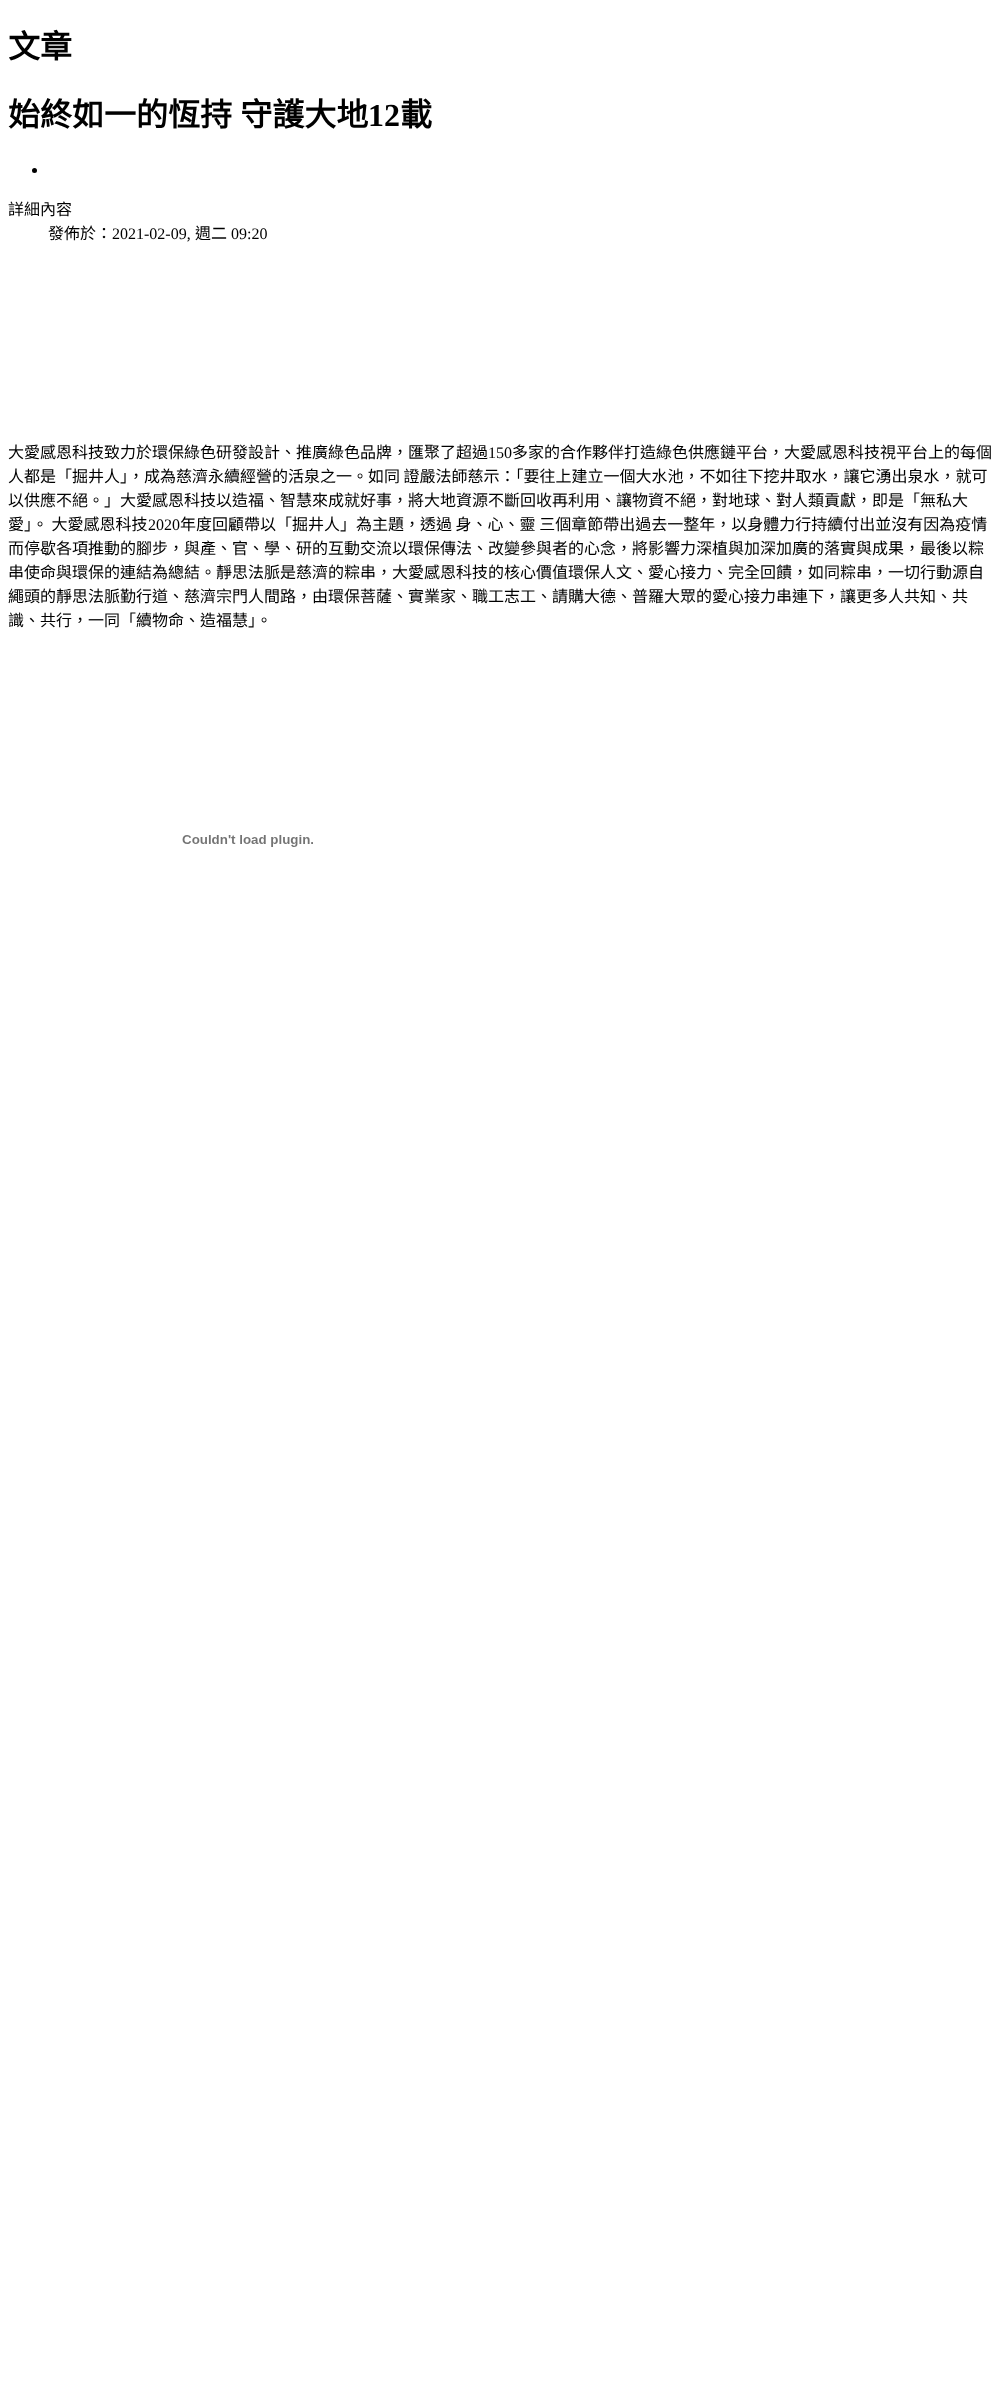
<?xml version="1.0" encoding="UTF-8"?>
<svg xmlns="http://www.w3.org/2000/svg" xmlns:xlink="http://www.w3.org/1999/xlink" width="1001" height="2401">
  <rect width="100%" height="100%" fill="#ffffff" />
  <circle cx="34.5" cy="170.5" r="2.5" fill="#000000" />
  <image x="182" y="835" width="131" height="12" xlink:href="image1.png" />
  <text x="8" y="58" style="font-family: Noto Sans CJK TC; font-size: 32px; font-weight: bold; fill: #000000">文章</text>
  <text x="8" y="126" word-spacing="1" style="font-family: Noto Sans CJK TC; font-size: 32px; font-weight: bold; fill: #000000">始終如一的恆持 守護大地</text>
  <text x="368" y="126" style="font-family: Liberation Serif; font-size: 32px; font-weight: bold; fill: #000000">12</text>
  <text x="400" y="126" style="font-family: Noto Sans CJK TC; font-size: 32px; font-weight: bold; fill: #000000">載</text>
  <text x="8" y="215" style="font-family: Noto Sans CJK TC; font-size: 16px; fill: #000000">詳細內容</text>
  <text x="48" y="239" style="font-family: Noto Sans CJK TC; font-size: 16px; fill: #000000">發佈於：</text>
  <text x="112" y="239" style="font-family: Liberation Serif; font-size: 16px; fill: #000000">2021-02-09,</text>
  <text x="195" y="239" style="font-family: Noto Sans CJK TC; font-size: 16px; fill: #000000">週二</text>
  <text x="231" y="239" style="font-family: Liberation Serif; font-size: 16px; fill: #000000">09:20</text>
  <text x="8" y="458" style="font-family: Noto Sans CJK TC; font-size: 16px; fill: #000000">大愛感恩科技致力於環保綠色研發設計、推廣綠色品牌，匯聚了超過</text>
  <text x="488" y="458" style="font-family: Liberation Serif; font-size: 16px; fill: #000000">150</text>
  <text x="512" y="458" style="font-family: Noto Sans CJK TC; font-size: 16px; fill: #000000">多家的合作夥伴打造綠色供應鏈平台，大愛感恩科技視平台上的每個</text>
  <text x="8" y="482" style="font-family: Noto Sans CJK TC; font-size: 16px; fill: #000000">人都是「掘井人」，成為慈濟永續經營的活泉之一。如同 證嚴法師慈示：「要往上建立一個大水池，不如往下挖井取水，讓它湧出泉水，就可</text>
  <text x="8" y="506" style="font-family: Noto Sans CJK TC; font-size: 16px; fill: #000000">以供應不絕。」大愛感恩科技以造福、智慧來成就好事，將大地資源不斷回收再利用、讓物資不絕，對地球、對人類貢獻，即是「無私大</text>
  <text x="8" y="530" style="font-family: Noto Sans CJK TC; font-size: 16px; fill: #000000">愛」。 大愛感恩科技</text>
  <text x="148" y="530" style="font-family: Liberation Serif; font-size: 16px; fill: #000000">2020</text>
  <text x="180" y="530" style="font-family: Noto Sans CJK TC; font-size: 16px; fill: #000000">年度回顧帶以「掘井人」為主題，透過 身、心、靈 三個章節帶出過去一整年，以身體力行持續付出並沒有因為疫情</text>
  <text x="8" y="554" style="font-family: Noto Sans CJK TC; font-size: 16px; fill: #000000">而停歇各項推動的腳步，與產、官、學、研的互動交流以環保傳法、改變參與者的心念，將影響力深植與加深加廣的落實與成果，最後以粽</text>
  <text x="8" y="578" style="font-family: Noto Sans CJK TC; font-size: 16px; fill: #000000">串使命與環保的連結為總結。靜思法脈是慈濟的粽串，大愛感恩科技的核心價值環保人文、愛心接力、完全回饋，如同粽串，一切行動源自</text>
  <text x="8" y="602" style="font-family: Noto Sans CJK TC; font-size: 16px; fill: #000000">繩頭的靜思法脈勤行道、慈濟宗門人間路，由環保菩薩、實業家、職工志工、請購大德、普羅大眾的愛心接力串連下，讓更多人共知、共</text>
  <text x="8" y="626" style="font-family: Noto Sans CJK TC; font-size: 16px; fill: #000000">識、共行，一同「續物命、造福慧」。</text>
</svg>
